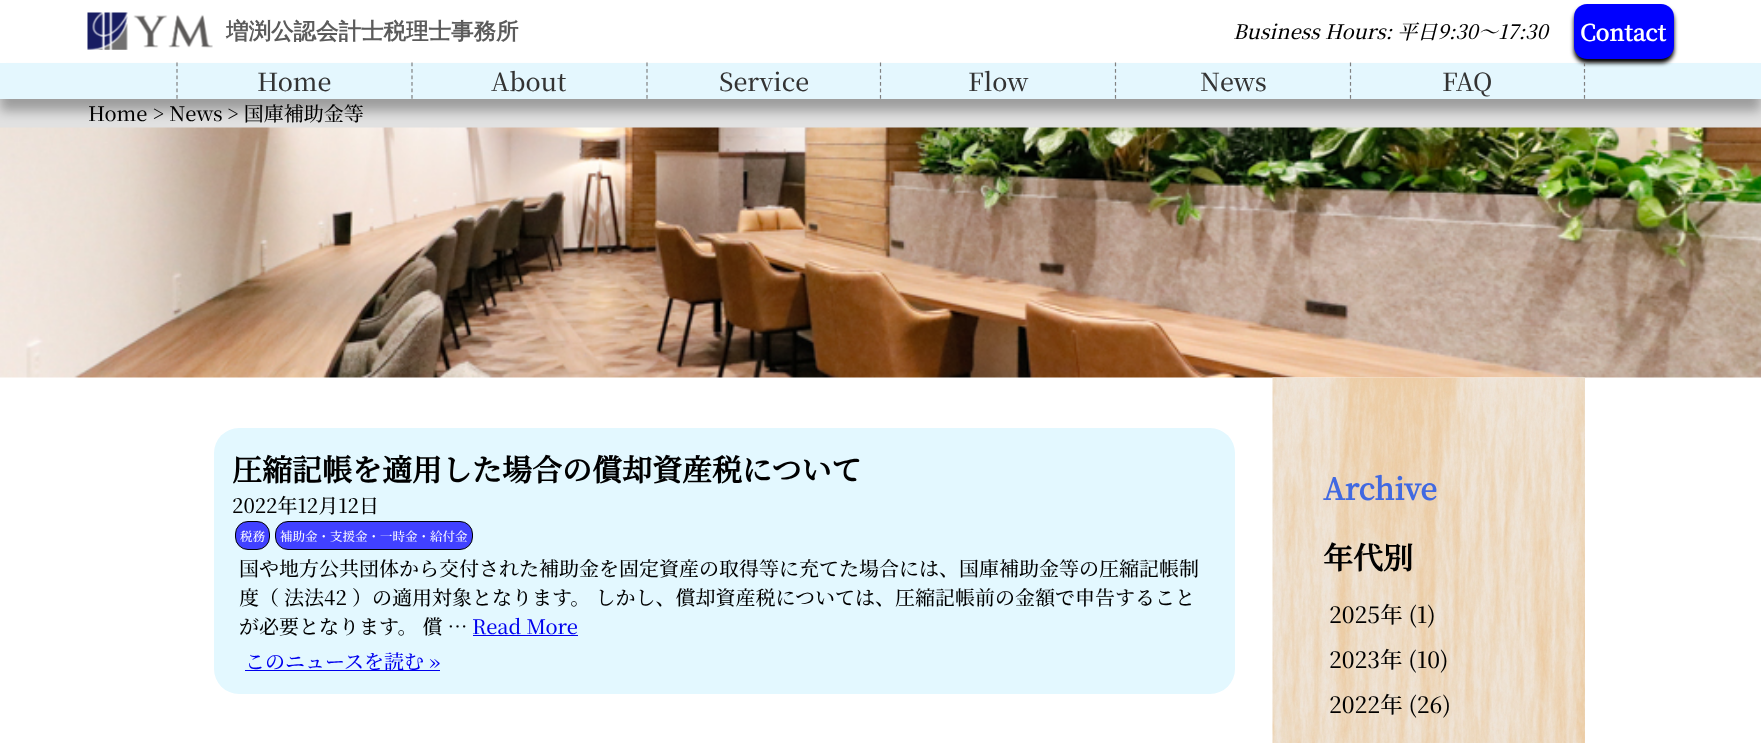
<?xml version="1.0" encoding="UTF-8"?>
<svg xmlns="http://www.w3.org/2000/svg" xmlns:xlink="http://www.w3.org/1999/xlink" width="1761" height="743">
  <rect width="100%" height="100%" fill="#ffffff" />
  <image x="87" y="12" width="126" height="38" xlink:href="image1.png" />
  <rect y="99" width="1761" height="29" fill="#e1e1e1" />
  <image x="0" y="127" width="1761" height="251" xlink:href="image2.png" />
  <rect y="75" width="1761" height="36" fill="#000000" fill-opacity="0.3" filter="blur(6px)" />
  <rect y="63" width="1761" height="36" fill="#e4f7fe" />
  <rect x="1574" y="8" width="100" height="55" rx="13" fill="#000000" filter="blur(2px)" />
  <rect x="1574" y="4" width="100" height="55" rx="13" fill="#0000ff" />
  <path d="M 177 62.5 v 36.5" fill="none" stroke="#808080" stroke-width="1.2" stroke-dasharray="3.75 2.75" />
  <path d="M 412 62.5 v 36.5" fill="none" stroke="#808080" stroke-width="1.2" stroke-dasharray="3.75 2.75" />
  <path d="M 647 62.5 v 36.5" fill="none" stroke="#808080" stroke-width="1.2" stroke-dasharray="3.75 2.75" />
  <path d="M 880.5 62.5 v 36.5" fill="none" stroke="#808080" stroke-width="1.2" stroke-dasharray="3.75 2.75" />
  <path d="M 1115.5 62.5 v 36.5" fill="none" stroke="#808080" stroke-width="1.2" stroke-dasharray="3.75 2.75" />
  <path d="M 1584.5 62.5 v 36.5" fill="none" stroke="#808080" stroke-width="1.2" stroke-dasharray="3.75 2.75" />
  <path d="M 1350.5 62.5 v 36.5" fill="none" stroke="#808080" stroke-width="1.2" stroke-dasharray="3.75 2.75" />
  <rect x="214" y="428" width="1021" height="266" rx="25" fill="#e3f8ff" />
  <rect x="235.5" y="521.5" width="34" height="28" rx="12.5" fill="#4141ff" stroke="#000000" />
  <rect x="275.5" y="521.5" width="197" height="28" rx="12.5" fill="#4141ff" stroke="#000000" />
  <rect x="473" y="635" width="105" height="1" fill="#0000ee" />
  <rect x="245" y="670" width="195" height="1" fill="#0000ee" />
  <image x="1272" y="377" width="313" height="366" xlink:href="image3.png" />
  <text x="226" y="39" style="font-family: WenQuanYi Zen Hei; font-size: 22.5px; font-weight: bold; fill: #5b5b5b">増渕公認会計士税理士事務所</text>
  <text x="1233" y="39" style="font-family: Noto Serif JP; font-size: 20px; font-weight: 200; font-style: italic; fill: #000000">Business Hours: 平日9:30～17:30</text>
  <text x="1580" y="41" style="font-family: Noto Serif JP; font-size: 22.5px; font-weight: bold; fill: #ffffff">Contact</text>
  <text x="257" y="91" style="font-family: Noto Serif JP; font-size: 25px; font-weight: 200; fill: #333333">Home</text>
  <text x="491" y="91" style="font-family: Noto Serif JP; font-size: 25px; font-weight: 200; fill: #333333">About</text>
  <text x="719" y="91" style="font-family: Noto Serif JP; font-size: 25px; font-weight: 200; fill: #333333">Service</text>
  <text x="968" y="91" style="font-family: Noto Serif JP; font-size: 25px; font-weight: 200; fill: #333333">Flow</text>
  <text x="1200" y="91" style="font-family: Noto Serif JP; font-size: 25px; font-weight: 200; fill: #333333">News</text>
  <text x="1442" y="91" style="font-family: Noto Serif JP; font-size: 25px; font-weight: 200; fill: #333333">FAQ</text>
  <text x="88" y="121" style="font-family: Noto Serif JP; font-size: 20px; font-weight: 200; fill: #000000">Home &gt; News</text>
  <text x="227" y="121" style="font-family: Noto Serif JP; font-size: 20px; font-weight: 200; fill: #000000">&gt; 国庫補助金等</text>
  <text x="232" y="481" style="font-family: Noto Serif JP; font-size: 30px; font-weight: bold; fill: #000000">圧縮記帳を適用した場合の償却資産税について</text>
  <text x="232" y="513" style="font-family: Noto Serif JP; font-size: 20px; font-weight: 200; fill: #000000">2022年12月12日</text>
  <text x="240" y="541" style="font-family: Noto Serif JP; font-size: 12.5px; font-weight: 200; fill: #ffffff">税務</text>
  <text x="280" y="541" style="font-family: Noto Serif JP; font-size: 12.5px; font-weight: 200; fill: #ffffff">補助金・支援金・一時金・給付金</text>
  <text x="239" y="576" style="font-family: Noto Serif JP; font-size: 20px; font-weight: 200; fill: #000000">国や地方公共団体から交付された補助金を固定資産の取得等に充てた場合には、国庫補助金等の圧縮記帳制</text>
  <text x="239" y="605" style="font-family: Noto Serif JP; font-size: 20px; font-weight: 200; fill: #000000">度（ 法法42 ）の適用対象となります。 しかし、償却資産税については、圧縮記帳前の金額で申告すること</text>
  <text x="239" y="634" style="font-family: Noto Serif JP; font-size: 20px; font-weight: 200; fill: #000000">が必要となります。 償 …</text>
  <text x="472" y="634" style="font-family: Noto Serif JP; font-size: 20px; font-weight: 200; fill: #0000ee">Read More</text>
  <text x="245" y="669" style="font-family: Noto Serif JP; font-size: 20px; font-weight: 200; fill: #0000ee">このニュースを読む »</text>
  <text x="1323" y="500" style="font-family: Noto Serif JP; font-size: 30px; font-weight: bold; fill: #4169e1">Archive</text>
  <text x="1323" y="569" style="font-family: Noto Serif JP; font-size: 30px; font-weight: bold; fill: #000000">年代別</text>
  <text x="1329" y="623" style="font-family: Noto Serif JP; font-size: 22.5px; font-weight: 200; fill: #000000">2025年 (1)</text>
  <text x="1329" y="668" style="font-family: Noto Serif JP; font-size: 22.5px; font-weight: 200; fill: #000000">2023年 (10)</text>
  <text x="1329" y="713" style="font-family: Noto Serif JP; font-size: 22.5px; font-weight: 200; fill: #000000">2022年 (26)</text>
</svg>
